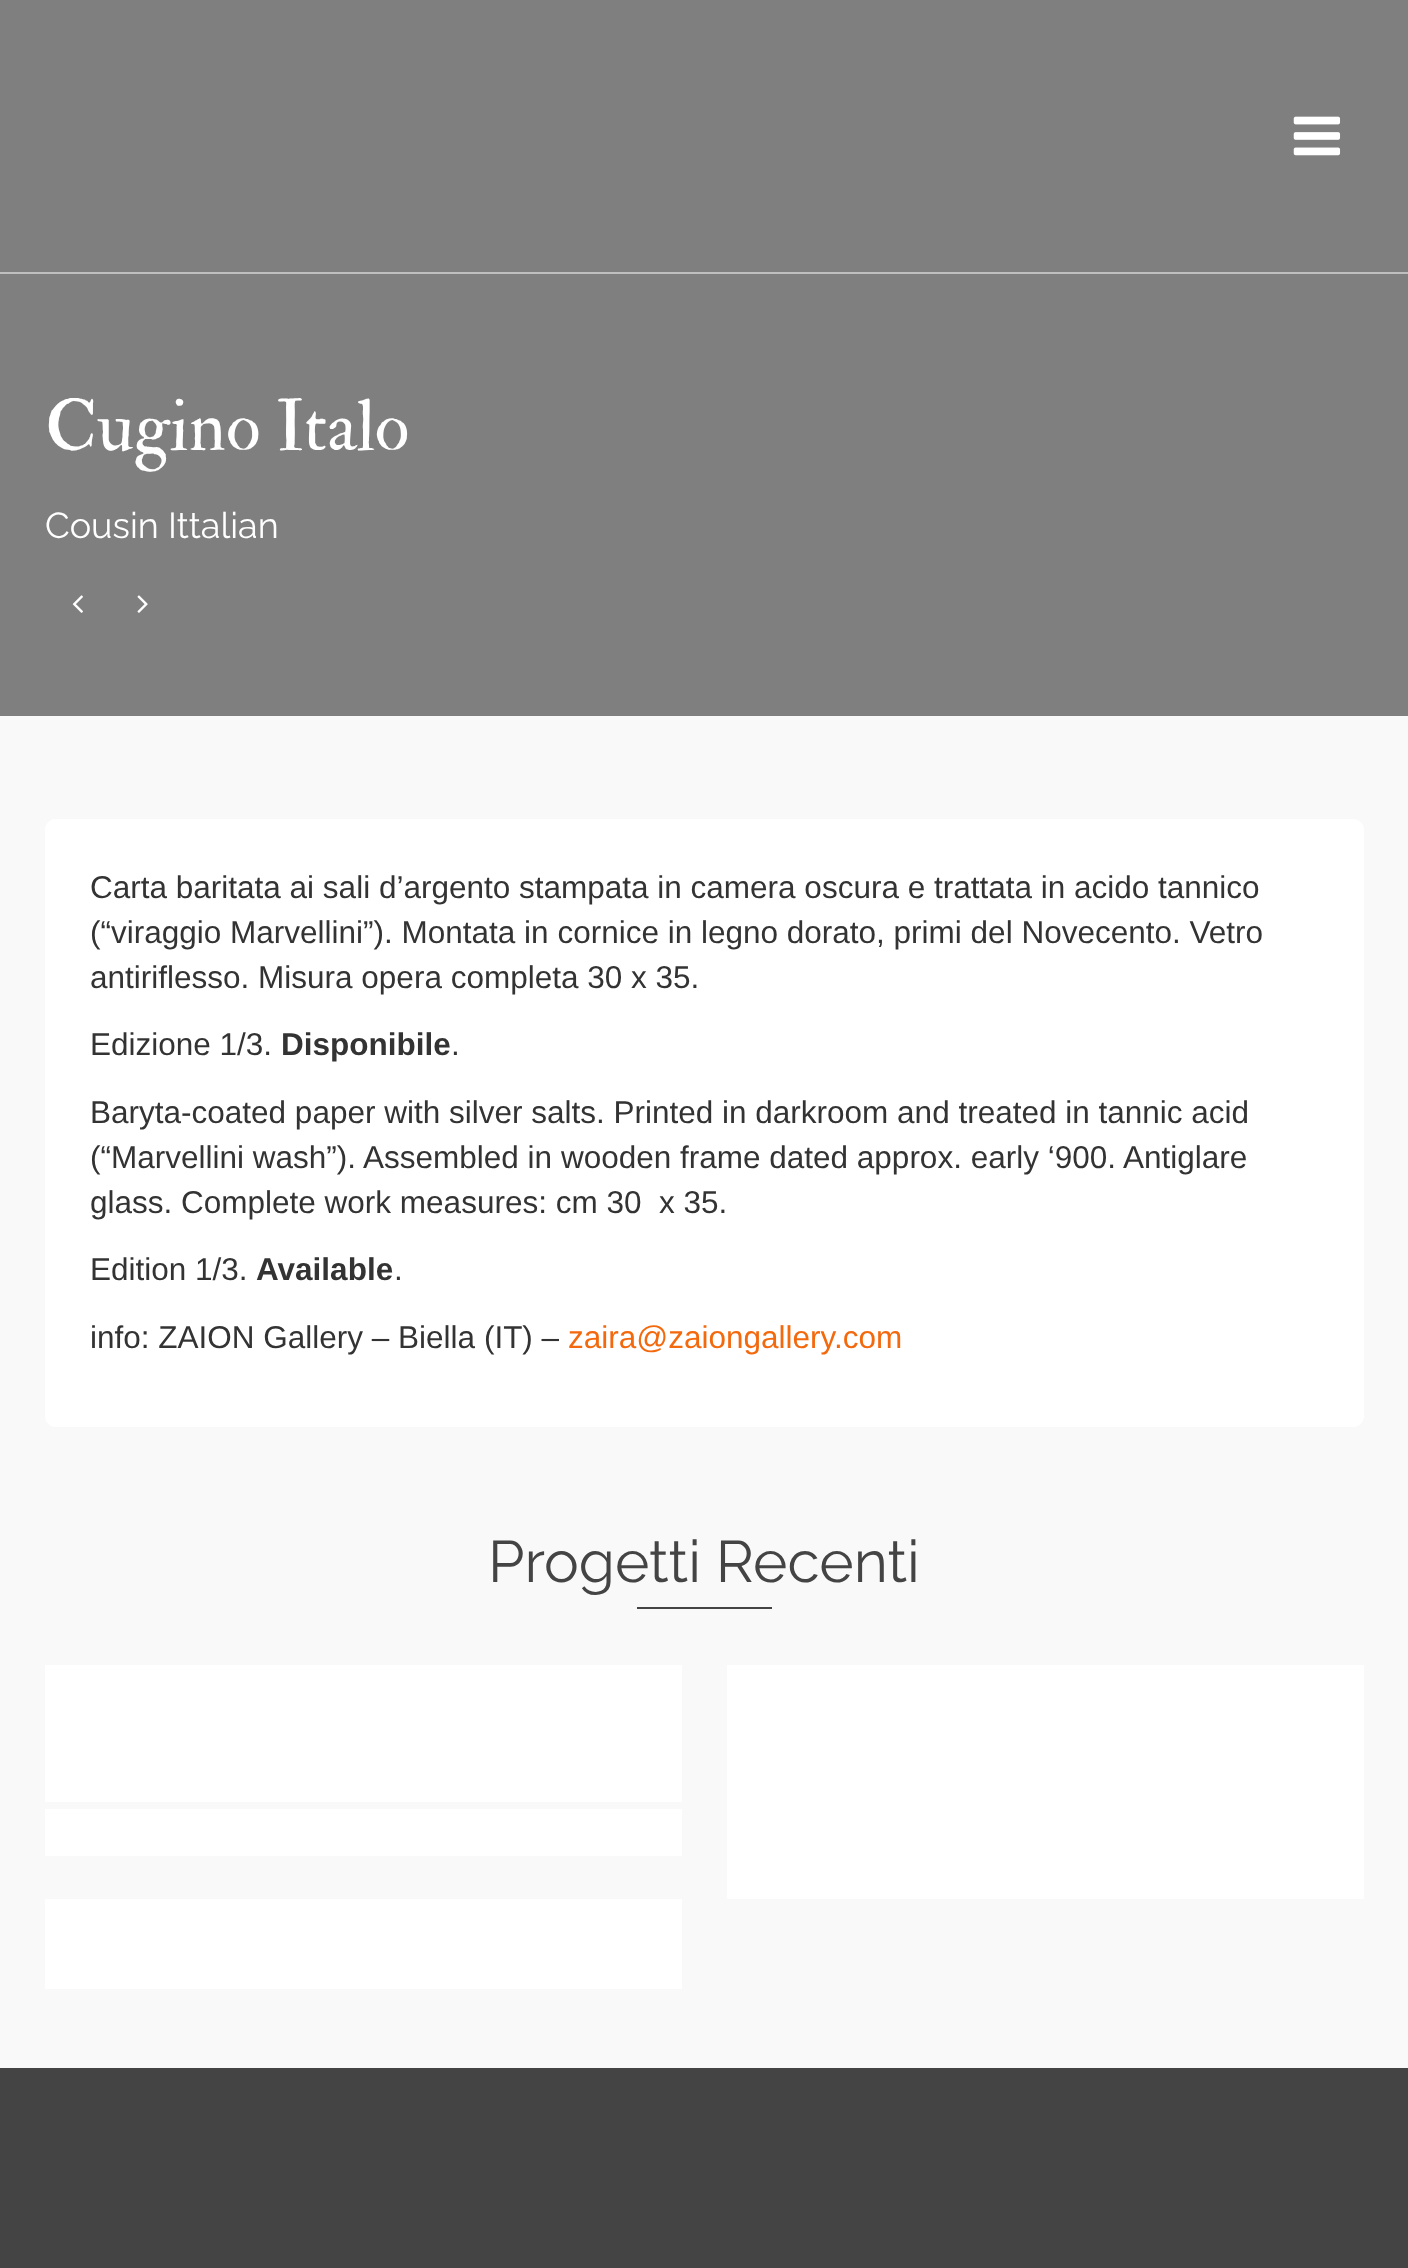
<?xml version="1.0" encoding="UTF-8"?>
<svg xmlns="http://www.w3.org/2000/svg" xmlns:xlink="http://www.w3.org/1999/xlink" width="1408" height="2268">
  <rect width="100%" height="100%" fill="#f9f9f9" />
  <rect width="1408" height="716" fill="#7f7f7f" />
  <rect y="272" width="1408" height="2" fill="#bfbfbf" />
  <image x="1293" y="116" width="48" height="40" xlink:href="image1.png" />
  <image x="72" y="595" width="11" height="18" xlink:href="image2.png" />
  <image x="137" y="595" width="11" height="18" xlink:href="image3.png" />
  <rect x="45" y="819" width="1319" height="608" rx="11" fill="#ffffff" />
  <rect x="637" y="1607" width="135" height="2" fill="#444444" />
  <rect x="45" y="1665" width="637" height="137" fill="#ffffff" />
  <rect x="727" y="1665" width="637" height="234" fill="#ffffff" />
  <rect x="45" y="1809" width="637" height="47" fill="#ffffff" />
  <rect x="45" y="1899" width="637" height="90" fill="#ffffff" />
  <rect y="2068" width="1408" height="200" fill="#444444" />
  <text x="45" y="450" style="font-family: IM FELL Double Pica; font-size: 72px; fill: #ffffff">Cugino Italo</text>
  <text x="45" y="538" style="font-family: Raleway; font-size: 36px; fill: #ffffff">Cousin Ittalian</text>
  <text x="90" y="898" style="font-family: Liberation Sans; font-size: 31.5px; fill: #333333">Carta baritata ai sali d’argento stampata in camera oscura e trattata in acido tannico</text>
  <text x="90" y="943" style="font-family: Liberation Sans; font-size: 31.5px; fill: #333333">(“viraggio Marvellini”). Montata in cornice in legno dorato, primi del Novecento. Vetro</text>
  <text x="90" y="988" style="font-family: Liberation Sans; font-size: 31.5px; fill: #333333">antiriflesso. Misura opera completa 30 x 35.</text>
  <text x="90" y="1055" style="font-family: Liberation Sans; font-size: 31.5px; fill: #333333">Edizione 1/3.</text>
  <text x="281" y="1055" style="font-family: Liberation Sans; font-size: 31.5px; font-weight: bold; fill: #333333">Disponibile</text>
  <text x="451" y="1055" style="font-family: Liberation Sans; font-size: 31.5px; fill: #333333">.</text>
  <text x="90" y="1123" style="font-family: Liberation Sans; font-size: 31.5px; fill: #333333">Baryta-coated paper with silver salts. Printed in darkroom and treated in tannic acid</text>
  <text x="90" y="1168" style="font-family: Liberation Sans; font-size: 31.5px; fill: #333333">(“Marvellini wash”). Assembled in wooden frame dated approx. early ‘900. Antiglare</text>
  <text x="90" y="1213" style="font-family: Liberation Sans; font-size: 31.5px; fill: #333333" xml:space="preserve">glass. Complete work measures: cm 30  x 35.</text>
  <text x="90" y="1280" style="font-family: Liberation Sans; font-size: 31.5px; fill: #333333">Edition 1/3.</text>
  <text x="256" y="1280" style="font-family: Liberation Sans; font-size: 31.5px; font-weight: bold; fill: #333333">Available</text>
  <text x="394" y="1280" style="font-family: Liberation Sans; font-size: 31.5px; fill: #333333">.</text>
  <text x="90" y="1348" style="font-family: Liberation Sans; font-size: 31.5px; fill: #333333">info: ZAION Gallery – Biella (IT) –</text>
  <text x="568" y="1348" style="font-family: Liberation Sans; font-size: 31.5px; fill: #f3690e">zaira@zaiongallery.com</text>
  <text x="488" y="1582" style="font-family: Raleway; font-size: 58.5px; fill: #444444">Progetti Recenti</text>
</svg>
